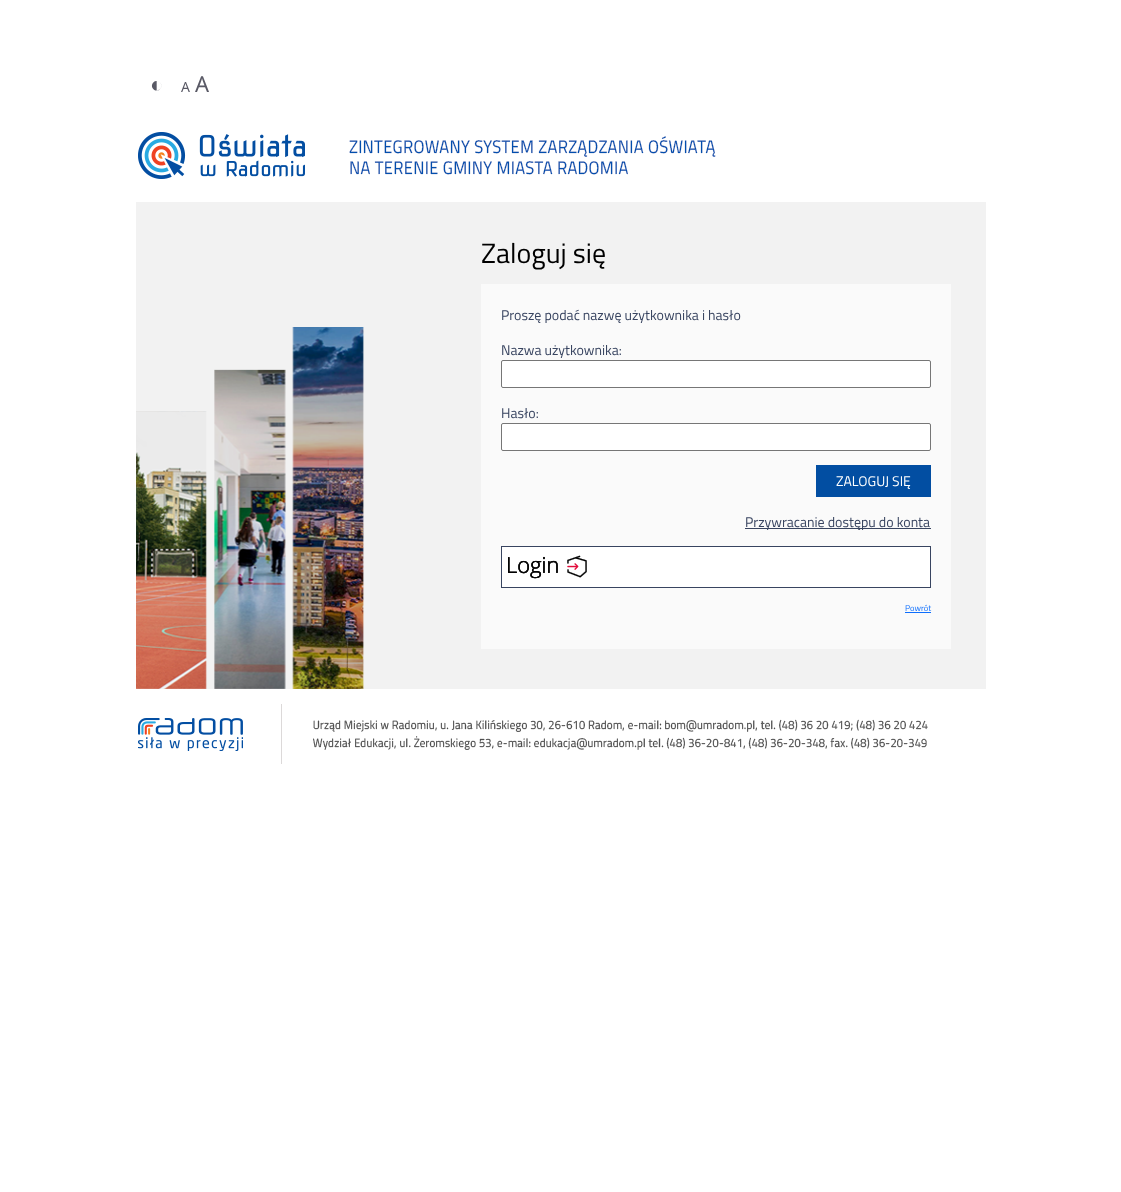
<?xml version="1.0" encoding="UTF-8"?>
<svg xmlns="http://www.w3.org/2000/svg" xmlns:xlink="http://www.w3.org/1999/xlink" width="1121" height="1192">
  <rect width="100%" height="100%" fill="#ffffff" />
  <image x="138" y="132" width="578" height="47" xlink:href="image1.png" />
  <rect x="136" y="202" width="850" height="487" fill="#f2f2f2" />
  <image x="136" y="327" width="228" height="362" xlink:href="image2.png" />
  <rect x="481" y="284" width="470" height="365" fill="#fafafa" />
  <rect x="501.5" y="360.5" width="429" height="27" rx="1.5" fill="#ffffff" stroke="#767676" />
  <rect x="501.5" y="423.5" width="429" height="27" rx="1.5" fill="#ffffff" stroke="#767676" />
  <rect x="816" y="465" width="115" height="32" fill="#024ea2" />
  <rect x="745" y="528" width="186" height="1" fill="#384460" />
  <rect x="501.5" y="546.5" width="429" height="41" fill="#ffffff" stroke="#384460" />
  <image x="508" y="555" width="79" height="24" xlink:href="image3.png" />
  <rect x="905" y="612" width="26" height="1" fill="#0d6efd" />
  <image x="138" y="704" width="790" height="60" xlink:href="image4.png" />
  <text x="150" y="92" style="font-family: Liberation Sans; font-size: 22px; fill: #595965">◐</text>
  <text x="181" y="92" style="font-family: Noto Sans; font-size: 14px; fill: #595965">A</text>
  <text x="195" y="92" style="font-family: Noto Sans; font-size: 22px; fill: #595965">A</text>
  <text x="481" y="263" style="font-family: Titillium Web; font-size: 28px; fill: #000000">Zaloguj się</text>
  <text x="501" y="320" style="font-family: Titillium Web; font-size: 14px; fill: #384460">Proszę podać nazwę użytkownika i hasło</text>
  <text x="501" y="355" style="font-family: Titillium Web; font-size: 14px; fill: #384460">Nazwa użytkownika:</text>
  <text x="501" y="418" style="font-family: Titillium Web; font-size: 14px; fill: #384460">Hasło:</text>
  <text x="836" y="486" style="font-family: Titillium Web; font-size: 14px; fill: #ffffff">ZALOGUJ SIĘ</text>
  <text x="745" y="527" style="font-family: Titillium Web; font-size: 14px; fill: #384460">Przywracanie dostępu do konta</text>
  <text x="905" y="611" style="font-family: Titillium Web; font-size: 8.5px; fill: #0d6efd">Powrót</text>
</svg>
